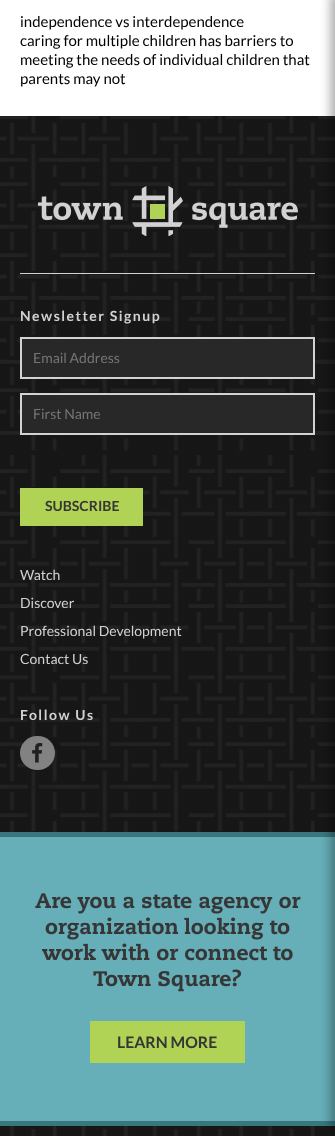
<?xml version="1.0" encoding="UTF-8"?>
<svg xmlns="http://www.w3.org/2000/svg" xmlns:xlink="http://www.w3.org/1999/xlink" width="335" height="1136">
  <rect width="100%" height="100%" fill="#ffffff" />
  <image x="0" y="116" width="335" height="1020" xlink:href="image1.png" />
  <rect x="20" y="273" width="295" height="1" fill="#d2d2d2" />
  <rect x="21" y="338" width="293" height="40" fill="#282828" stroke="#d2d2d2" stroke-width="2" />
  <rect x="21" y="394" width="293" height="40" fill="#282828" stroke="#d2d2d2" stroke-width="2" />
  <rect y="837" width="335" height="284" fill="#66aeb8" />
  <rect y="832" width="335" height="5" fill="#38777e" />
  <rect y="1121" width="335" height="5" fill="#38777e" />
  <rect x="330" y="-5" width="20" height="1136" fill="#000000" fill-opacity="0.3" filter="blur(5px)" />
  <image x="38" y="186" width="260" height="50" xlink:href="image2.png" />
  <rect x="20" y="488" width="123" height="38" fill="#b0d255" />
  <rect x="20" y="736" width="35" height="34" rx="17" fill="#828282" />
  <image x="32" y="743" width="11" height="20" xlink:href="image3.png" />
  <image x="35" y="893" width="266" height="21" xlink:href="image4.png" />
  <image x="45" y="917" width="134" height="23" xlink:href="image5.png" />
  <image x="184" y="917" width="106" height="23" xlink:href="image6.png" />
  <image x="42" y="943" width="251" height="18" xlink:href="image7.png" />
  <image x="93" y="969" width="149" height="23" xlink:href="image8.png" />
  <rect x="90" y="1021" width="155" height="42" fill="#b0d255" />
  <text x="20" y="27" style="font-family: Lato; font-size: 15px; fill: #000000">independence vs interdependence</text>
  <text x="20" y="46" style="font-family: Lato; font-size: 15px; fill: #000000">caring for multiple children has barriers to</text>
  <text x="20" y="65" style="font-family: Lato; font-size: 15px; fill: #000000">meeting the needs of individual children that</text>
  <text x="20" y="84" style="font-family: Lato; font-size: 15px; fill: #000000">parents may not</text>
  <text x="20" y="321" style="font-family: Lato; font-size: 14px; font-weight: bold; letter-spacing: 1.5px; fill: #d2d2d2">Newsletter Signup</text>
  <text x="33" y="363" style="font-family: Lato; font-size: 14px; fill: #757575">Email Address</text>
  <text x="33" y="419" style="font-family: Lato; font-size: 14px; fill: #757575">First Name</text>
  <text x="45" y="511" style="font-family: Lato; font-size: 14px; font-weight: bold; fill: #363636">SUBSCRIBE</text>
  <text x="20" y="580" style="font-family: Lato; font-size: 14px; fill: #d2d2d2">Watch</text>
  <text x="20" y="608" style="font-family: Lato; font-size: 14px; fill: #d2d2d2">Discover</text>
  <text x="20" y="636" style="font-family: Lato; font-size: 14px; fill: #d2d2d2">Professional Development</text>
  <text x="20" y="664" style="font-family: Lato; font-size: 14px; fill: #d2d2d2">Contact Us</text>
  <text x="20" y="720" style="font-family: Lato; font-size: 14px; font-weight: bold; letter-spacing: 1.5px; fill: #d2d2d2">Follow Us</text>
  <text x="117" y="1048" style="font-family: Lato; font-size: 15.75px; font-weight: bold; fill: #363636">LEARN MORE</text>
</svg>
